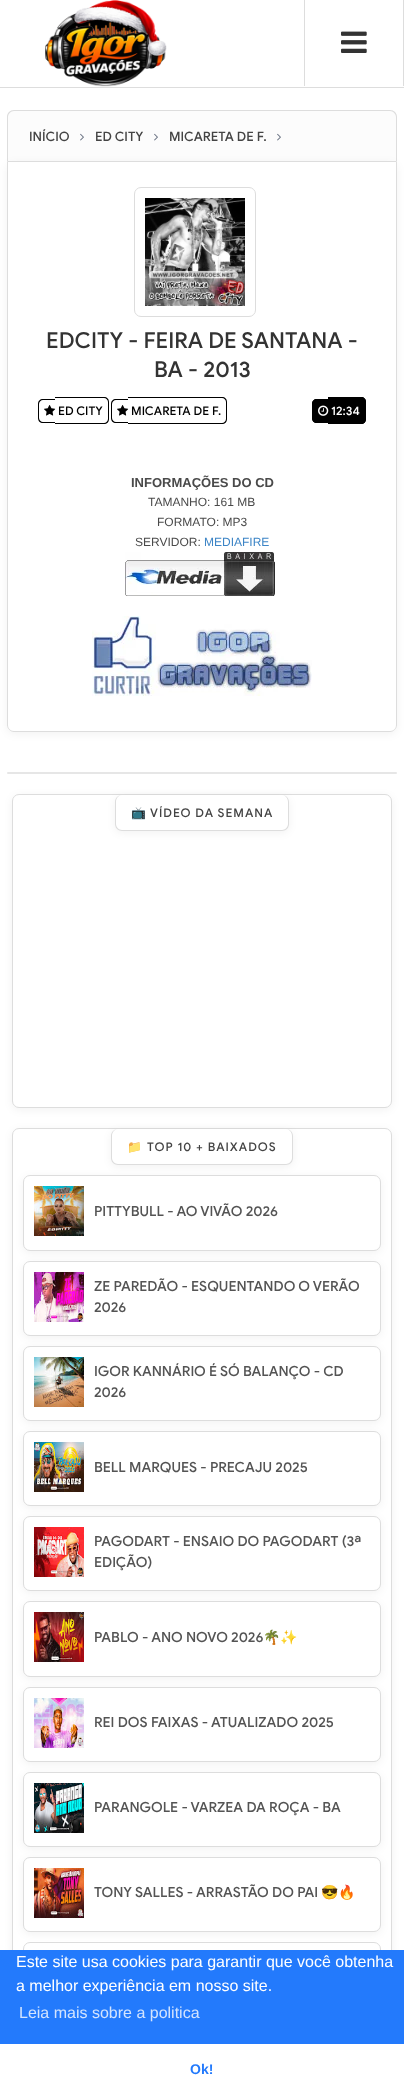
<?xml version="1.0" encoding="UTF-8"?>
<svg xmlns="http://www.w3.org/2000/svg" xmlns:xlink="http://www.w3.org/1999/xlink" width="404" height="2095">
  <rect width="100%" height="100%" fill="#ffffff" />
  <rect y="87" width="404" height="1" fill="#dddddd" />
  <image x="45" y="0" width="122" height="87" xlink:href="image1.png" />
  <rect x="403" width="1" height="86" fill="#dddddd" />
  <rect x="304" width="1" height="86" fill="#dddddd" />
  <image x="341" y="31" width="26" height="22" xlink:href="image2.png" />
  <path d="M 14 110 h 376 c 4 0 7 3 7 7 v 44 h -390 v -44 c 0 -4 3 -7 7 -7 z" fill="#fcfcfc" />
  <path d="M 14 110 h 376 c 4 0 7 3 7 7 v 44 h -390 v -44 c 0 -4 3 -7 7 -7 z m 0 1 h 376 c 3 0 6 3 6 6 v 44 h -388 v -44 c 0 -3 3 -6 6 -6 z" fill="#dddddd" fill-rule="evenodd" />
  <image x="80" y="133" width="4" height="8" xlink:href="image3.png" />
  <image x="154" y="133" width="4" height="8" xlink:href="image3.png" />
  <image x="277" y="133" width="4" height="8" xlink:href="image3.png" />
  <rect x="7" y="163" width="390" height="571" rx="7" fill="#000000" fill-opacity="0.05" filter="blur(4px)" />
  <path d="M 7.5 161.5 h 389 v 563.5 c 0 3.5 -3 6.5 -6.5 6.5 h -376 c -3.5 0 -6.5 -3 -6.5 -6.5 z" fill="#ffffff" stroke="#dddddd" />
  <rect x="134.5" y="187.5" width="121" height="129" rx="6.5" fill="none" stroke="#dddddd" />
  <image x="145" y="198" width="100" height="108" xlink:href="image4.png" />
  <path d="M 43 399 h 12 v 24 h -12 c -3 0 -5 -2 -5 -5 v -14 c 0 -3 2 -5 5 -5 z m 0 1 h 12 v 22 h -12 c -2 0 -4 -2 -4 -4 v -14 c 0 -2 2 -4 4 -4 z" fill="#000000" fill-rule="evenodd" />
  <path d="M 55 397 h 49 c 3 0 5 2 5 5 v 17 c 0 3 -2 5 -5 5 h -49 z m 0 1 h 49 c 2 0 4 2 4 4 v 17 c 0 2 -2 4 -4 4 h -49 z" fill="#000000" fill-rule="evenodd" />
  <image x="44" y="405" width="12" height="11" xlink:href="image5.png" />
  <path d="M 116 399 h 12 v 24 h -12 c -3 0 -5 -2 -5 -5 v -14 c 0 -3 2 -5 5 -5 z m 0 1 h 12 v 22 h -12 c -2 0 -4 -2 -4 -4 v -14 c 0 -2 2 -4 4 -4 z" fill="#000000" fill-rule="evenodd" />
  <path d="M 128 397 h 94 c 3 0 5 2 5 5 v 17 c 0 3 -2 5 -5 5 h -94 z m 0 1 h 94 c 2 0 4 2 4 4 v 17 c 0 2 -2 4 -4 4 h -94 z" fill="#000000" fill-rule="evenodd" />
  <image x="117" y="405" width="12" height="11" xlink:href="image5.png" />
  <path d="M 317 399 h 11 v 24 h -11 c -3 0 -5 -2 -5 -5 v -14 c 0 -3 2 -5 5 -5 z" fill="#000000" />
  <path d="M 317 399 h 11 v 24 h -11 c -3 0 -5 -2 -5 -5 v -14 c 0 -3 2 -5 5 -5 z m 0 1 h 11 v 22 h -11 c -2 0 -4 -2 -4 -4 v -14 c 0 -2 2 -4 4 -4 z" fill="#000000" fill-rule="evenodd" />
  <rect x="328" y="397" width="3" height="27" fill="#000000" />
  <path d="M 331 397 h 30 c 3 0 5 2 5 5 v 17 c 0 3 -2 5 -5 5 h -30 z" fill="#000000" />
  <path d="M 331 397 h 30 c 3 0 5 2 5 5 v 17 c 0 3 -2 5 -5 5 h -30 z m 0 1 h 30 c 2 0 4 2 4 4 v 17 c 0 2 -2 4 -4 4 h -30 z" fill="#000000" fill-rule="evenodd" />
  <image x="318" y="405" width="11" height="11" xlink:href="image6.png" />
  <image x="125" y="552" width="150" height="44" xlink:href="image7.png" />
  <image x="92" y="616" width="220" height="80" xlink:href="image8.png" />
  <rect x="7" y="772" width="390" height="2" rx="1" fill="#e6e6e6" />
  <rect x="12" y="796" width="380" height="314" rx="7" fill="#000000" fill-opacity="0.05" filter="blur(4px)" />
  <rect x="12.5" y="794.5" width="379" height="313" rx="6.5" fill="#ffffff" stroke="#dddddd" />
  <rect x="115" y="797" width="174" height="36" rx="7" fill="#000000" fill-opacity="0.05" filter="blur(4px)" />
  <rect x="115" y="795" width="174" height="36" rx="7" fill="#ffffff" />
  <path d="M 122 795 h 160 c 4 0 7 3 7 7 v 22 c 0 4 -3 7 -7 7 h -160 c -4 0 -7 -3 -7 -7 v -22 c 0 -4 3 -7 7 -7 z m 0 0 h 160 c 3 0 6 3 6 7 v 22 c 0 3 -3 6 -6 6 h -160 c -3 0 -6 -3 -6 -6 v -22 c 0 -4 3 -7 6 -7 z" fill="#dddddd" fill-rule="evenodd" />
  <rect x="12" y="1130" width="380" height="900" rx="7" fill="#000000" fill-opacity="0.05" filter="blur(4px)" />
  <rect x="12.5" y="1128.5" width="379" height="899" rx="6.5" fill="#ffffff" stroke="#dddddd" />
  <rect x="111" y="1131" width="182" height="36" rx="7" fill="#000000" fill-opacity="0.05" filter="blur(4px)" />
  <rect x="111" y="1129" width="182" height="36" rx="7" fill="#ffffff" />
  <path d="M 118 1129 h 168 c 4 0 7 3 7 7 v 22 c 0 4 -3 7 -7 7 h -168 c -4 0 -7 -3 -7 -7 v -22 c 0 -4 3 -7 7 -7 z m 0 0 h 168 c 3 0 6 3 6 7 v 22 c 0 3 -3 6 -6 6 h -168 c -3 0 -6 -3 -6 -6 v -22 c 0 -4 3 -7 6 -7 z" fill="#dddddd" fill-rule="evenodd" />
  <rect x="23" y="1177" width="358" height="76" rx="7" fill="#000000" fill-opacity="0.05" filter="blur(4px)" />
  <rect x="23.5" y="1175.5" width="357" height="75" rx="6.5" fill="#ffffff" stroke="#dddddd" />
  <image x="34" y="1186" width="50" height="50" xlink:href="image9.png" />
  <rect x="23" y="1263" width="358" height="75" rx="7" fill="#000000" fill-opacity="0.05" filter="blur(4px)" />
  <rect x="23.5" y="1261.5" width="357" height="74" rx="6.5" fill="#ffffff" stroke="#dddddd" />
  <image x="34" y="1272" width="50" height="50" xlink:href="image10.png" />
  <rect x="23" y="1348" width="358" height="75" rx="7" fill="#000000" fill-opacity="0.05" filter="blur(4px)" />
  <rect x="23.5" y="1346.5" width="357" height="74" rx="6.5" fill="#ffffff" stroke="#dddddd" />
  <image x="34" y="1357" width="50" height="50" xlink:href="image11.png" />
  <rect x="23" y="1433" width="358" height="75" rx="7" fill="#000000" fill-opacity="0.05" filter="blur(4px)" />
  <rect x="23.5" y="1431.5" width="357" height="74" rx="6.5" fill="#ffffff" stroke="#dddddd" />
  <image x="34" y="1442" width="50" height="50" xlink:href="image12.png" />
  <rect x="23" y="1518" width="358" height="75" rx="7" fill="#000000" fill-opacity="0.05" filter="blur(4px)" />
  <rect x="23.5" y="1516.5" width="357" height="74" rx="6.5" fill="#ffffff" stroke="#dddddd" />
  <image x="34" y="1527" width="50" height="50" xlink:href="image13.png" />
  <rect x="23" y="1603" width="358" height="76" rx="7" fill="#000000" fill-opacity="0.05" filter="blur(4px)" />
  <rect x="23.5" y="1601.5" width="357" height="75" rx="6.5" fill="#ffffff" stroke="#dddddd" />
  <image x="34" y="1612" width="50" height="50" xlink:href="image14.png" />
  <rect x="23" y="1689" width="358" height="75" rx="7" fill="#000000" fill-opacity="0.05" filter="blur(4px)" />
  <rect x="23.5" y="1687.5" width="357" height="74" rx="6.5" fill="#ffffff" stroke="#dddddd" />
  <image x="34" y="1698" width="50" height="50" xlink:href="image15.png" />
  <rect x="23" y="1774" width="358" height="75" rx="7" fill="#000000" fill-opacity="0.05" filter="blur(4px)" />
  <rect x="23.5" y="1772.5" width="357" height="74" rx="6.5" fill="#ffffff" stroke="#dddddd" />
  <image x="34" y="1783" width="50" height="50" xlink:href="image16.png" />
  <rect x="23" y="1859" width="358" height="75" rx="7" fill="#000000" fill-opacity="0.05" filter="blur(4px)" />
  <rect x="23.5" y="1857.5" width="357" height="74" rx="6.5" fill="#ffffff" stroke="#dddddd" />
  <image x="34" y="1868" width="50" height="50" xlink:href="image17.png" />
  <rect x="23.5" y="1942.5" width="357" height="74" rx="6.5" fill="none" stroke="#dddddd" />
  <rect y="1950" width="404" height="94" fill="#237afc" />
  <text x="29" y="141" style="font-family: Google Sans; font-size: 13px; font-weight: 500; fill: #444444">INÍCIO</text>
  <text x="95" y="141" style="font-family: Google Sans; font-size: 13px; font-weight: 500; fill: #444444">ED CITY</text>
  <text x="169" y="141" style="font-family: Google Sans; font-size: 13px; font-weight: 500; fill: #444444">MICARETA DE F.</text>
  <text x="46" y="348" style="font-family: Google Sans; font-size: 22px; font-weight: 500; fill: #333333">EDCITY - FEIRA DE SANTANA -</text>
  <text x="154" y="377" style="font-family: Google Sans; font-size: 22px; font-weight: 500; fill: #333333">BA - 2013</text>
  <text x="58" y="415" style="font-family: Google Sans; font-size: 12px; font-weight: 500; fill: #000000">ED CITY</text>
  <text x="131" y="415" style="font-family: Google Sans; font-size: 12px; font-weight: 500; fill: #000000">MICARETA DE F.</text>
  <text x="331" y="415" style="font-family: Google Sans; font-size: 12px; font-weight: 500; fill: #ffffff">12:34</text>
  <text x="131" y="487" style="font-family: Liberation Sans; font-size: 13px; font-weight: bold; fill: #4a4a4a">INFORMAÇÕES DO CD</text>
  <text x="148" y="506" style="font-family: Liberation Sans; font-size: 12px; fill: #4a4a4a">TAMANHO: 161 MB</text>
  <text x="157" y="526" style="font-family: Liberation Sans; font-size: 12px; fill: #4a4a4a">FORMATO: MP3</text>
  <text x="135" y="546" style="font-family: Liberation Sans; font-size: 12px; fill: #4a4a4a">SERVIDOR:</text>
  <text x="204" y="546" style="font-family: Liberation Sans; font-size: 12px; fill: #3d85c6">MEDIAFIRE</text>
  <text x="131" y="817" style="font-family: Noto Color Emoji; font-size: 12px; letter-spacing: 1px; fill: #444444">📺</text>
  <text x="150" y="817" style="font-family: Google Sans; font-size: 12px; font-weight: 500; letter-spacing: 1px; fill: #444444">VÍDEO DA SEMANA</text>
  <text x="127" y="1151" style="font-family: Noto Color Emoji; font-size: 12px; letter-spacing: 1px; fill: #444444">📁</text>
  <text x="147" y="1151" style="font-family: Google Sans; font-size: 12px; font-weight: 500; letter-spacing: 1px; fill: #444444">TOP 10 + BAIXADOS</text>
  <text x="94" y="1216" style="font-family: Google Sans; font-size: 14px; font-weight: 500; fill: #545454">PITTYBULL - AO VIVÃO 2026</text>
  <text x="94" y="1291" style="font-family: Google Sans; font-size: 14px; font-weight: 500; fill: #545454">ZE PAREDÃO - ESQUENTANDO O VERÃO</text>
  <text x="94" y="1312" style="font-family: Google Sans; font-size: 14px; font-weight: 500; fill: #545454">2026</text>
  <text x="94" y="1376" style="font-family: Google Sans; font-size: 14px; font-weight: 500; fill: #545454">IGOR KANNÁRIO É SÓ BALANÇO - CD</text>
  <text x="94" y="1397" style="font-family: Google Sans; font-size: 14px; font-weight: 500; fill: #545454">2026</text>
  <text x="94" y="1472" style="font-family: Google Sans; font-size: 14px; font-weight: 500; fill: #545454">BELL MARQUES - PRECAJU 2025</text>
  <text x="94" y="1546" style="font-family: Google Sans; font-size: 14px; font-weight: 500; fill: #545454">PAGODART - ENSAIO DO PAGODART (3ª</text>
  <text x="94" y="1567" style="font-family: Google Sans; font-size: 14px; font-weight: 500; fill: #545454">EDIÇÃO)</text>
  <text x="94" y="1642" style="font-family: Google Sans; font-size: 14px; font-weight: 500; fill: #545454">PABLO - ANO NOVO 2026</text>
  <text x="263" y="1642" style="font-family: Noto Color Emoji; font-size: 14px; fill: #545454">🌴✨</text>
  <text x="94" y="1727" style="font-family: Google Sans; font-size: 14px; font-weight: 500; fill: #545454">REI DOS FAIXAS - ATUALIZADO 2025</text>
  <text x="94" y="1812" style="font-family: Google Sans; font-size: 14px; font-weight: 500; fill: #545454">PARANGOLE - VARZEA DA ROÇA - BA</text>
  <text x="94" y="1897" style="font-family: Google Sans; font-size: 14px; font-weight: 500; fill: #545454">TONY SALLES - ARRASTÃO DO PAI</text>
  <text x="321" y="1897" style="font-family: Noto Color Emoji; font-size: 14px; fill: #545454">😎🔥</text>
  <text x="16" y="1967" style="font-family: Liberation Sans; font-size: 16px; fill: #ffffff">Este site usa cookies para garantir que você obtenha</text>
  <text x="16" y="1991" style="font-family: Liberation Sans; font-size: 16px; fill: #ffffff">a melhor experiência em nosso site.</text>
  <text x="19" y="2018" style="font-family: Liberation Sans; font-size: 16px; fill: #d3e4fe">Leia mais sobre a politica</text>
  <text x="190" y="2074" style="font-family: Liberation Sans; font-size: 14px; font-weight: bold; fill: #237afc">Ok!</text>
</svg>
